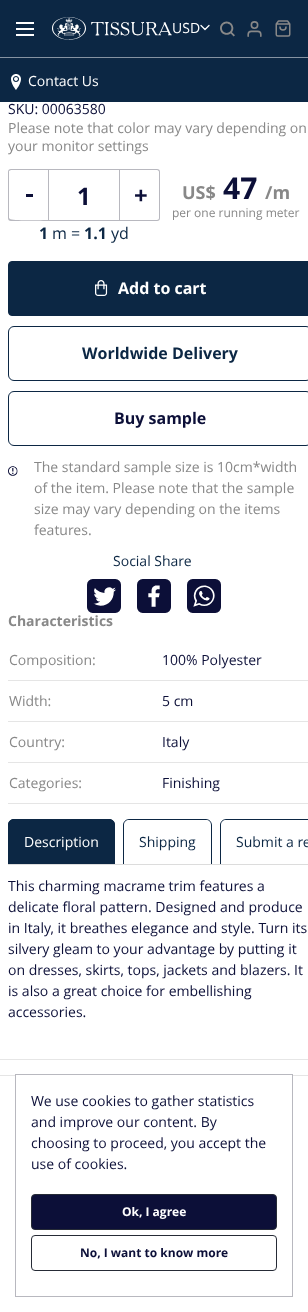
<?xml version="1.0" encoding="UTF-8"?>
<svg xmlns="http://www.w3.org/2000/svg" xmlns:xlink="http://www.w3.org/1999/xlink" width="308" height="1312">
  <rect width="100%" height="100%" fill="#ffffff" />
  <rect width="308" height="102" fill="#0c2744" />
  <rect y="57" width="308" height="1" fill="#8693a2" />
  <rect x="16" y="22" width="18" height="2" fill="#ffffff" />
  <rect x="16" y="28" width="18" height="2" fill="#ffffff" />
  <rect x="16" y="34" width="18" height="2" fill="#ffffff" />
  <image x="52" y="17" width="120" height="23" xlink:href="image1.png" />
  <path d="M 201 25.5 l 4 4 l 4 -4" fill="none" stroke="#ffffff" stroke-width="1.3" stroke-linecap="round" stroke-linejoin="round" />
  <image x="220" y="21" width="15" height="16" xlink:href="image2.png" />
  <image x="247" y="21" width="15" height="16" xlink:href="image3.png" />
  <image x="275" y="20" width="16" height="17" xlink:href="image4.png" />
  <image x="11" y="74" width="10" height="16" xlink:href="image5.png" />
  <path d="M 11 169 h 37 v 52 h -37 c -2 0 -3 -1 -3 -3 v -46 c 0 -2 1 -3 3 -3 z m 0 1 h 37 v 50 c -4 0 -37 1 -38 -1 l -1 -1 v -47 z" fill="#b8b8bf" fill-rule="evenodd" />
  <rect x="26" y="194" width="7" height="3" fill="#0c0f38" />
  <rect x="48.5" y="169.5" width="71" height="51" fill="none" stroke="#b8b8bf" />
  <path d="M 120 169 h 37 c 2 0 3 1 3 3 v 46 c 0 2 -1 3 -3 3 h -37 z m 0 1 h 37 c 1 0 2 1 2 2 v 46 c 0 1 -1 2 -2 2 h -37 z" fill="#b8b8bf" fill-rule="evenodd" />
  <rect x="8.5" y="261.5" width="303" height="54" rx="3.5" fill="#0c2744" stroke="#0c2744" />
  <image x="95" y="280" width="13" height="16" xlink:href="image6.png" />
  <rect x="8.5" y="326.5" width="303" height="54" rx="5.5" fill="none" stroke="#0c2744" />
  <rect x="8.5" y="391.5" width="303" height="54" rx="5.5" fill="none" stroke="#0c2744" />
  <image x="8" y="466" width="10" height="10" xlink:href="image7.png" />
  <image x="87" y="579" width="34" height="34" xlink:href="image8.png" />
  <image x="137" y="579" width="34" height="34" xlink:href="image9.png" />
  <image x="187" y="579" width="34" height="34" xlink:href="image10.png" />
  <rect x="8" y="680" width="300" height="1" fill="#e5e5e5" />
  <rect x="8" y="721" width="300" height="1" fill="#e5e5e5" />
  <rect x="8" y="762" width="300" height="1" fill="#e5e5e5" />
  <rect x="8" y="803" width="300" height="1" fill="#e5e5e5" />
  <rect x="8" y="864" width="300" height="1" fill="#dcdcdc" />
  <path d="M 14 819 h 95 c 3.5 0 6 2.5 6 6 v 39 h -107 v -39 c 0 -3.5 2.5 -6 6 -6 z" fill="#0c2744" />
  <path d="M 14 819 h 95 c 3 0 6 3 6 6 v 39 h -107 v -39 c 0 -3 3 -6 6 -6 z m 0 1 h 95 c 3 0 5 2 5 5 v 39 h -105 v -39 c 0 -3 2 -5 5 -5 z" fill="#0c2744" fill-rule="evenodd" />
  <path d="M 129 819 h 77 c 3 0 6 3 6 6 v 39 h -89 v -39 c 0 -3 3 -6 6 -6 z m 0 1 h 77 c 3 0 5 2 5 5 v 39 h -87 v -39 c 0 -3 2 -5 5 -5 z" fill="#0c2744" fill-rule="evenodd" />
  <path d="M 226 819 h 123 c 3 0 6 3 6 6 v 39 h -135 v -39 c 0 -3 3 -6 6 -6 z m 0 1 h 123 c 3 0 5 2 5 5 v 39 h -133 v -39 c 0 -3 2 -5 5 -5 z" fill="#0c2744" fill-rule="evenodd" />
  <rect y="1059" width="308" height="1" fill="#e6e6e6" />
  <rect y="1075" width="308" height="1" fill="#e5e5e5" />
  <rect x="16" y="1075" width="276" height="1" fill="#ffffff" />
  <rect x="15.5" y="1074.5" width="277" height="222" fill="none" stroke="#b8b8bf" />
  <rect x="31.5" y="1194.5" width="245" height="35" rx="3.5" fill="#0c0f38" stroke="#262b36" />
  <rect x="31.5" y="1235.5" width="245" height="35" rx="3.5" fill="none" stroke="#262b36" />
  <text x="172" y="33" style="font-family: Open Sans; font-size: 14px; fill: #ffffff">USD</text>
  <text x="28" y="86" style="font-family: Open Sans; font-size: 14px; fill: #ffffff">Contact Us</text>
  <text x="8" y="114" style="font-family: Open Sans; font-size: 14px; fill: #0c0f38">SKU: 00063580</text>
  <text x="8" y="133" style="font-family: Open Sans; font-size: 14px; fill: #888888">Please note that color may vary depending on</text>
  <text x="8" y="151" style="font-family: Open Sans; font-size: 14px; fill: #888888">your monitor settings</text>
  <text x="77" y="205" style="font-family: Open Sans; font-size: 24px; font-weight: bold; fill: #0c0f38">1</text>
  <text x="134" y="204" style="font-family: Open Sans; font-size: 24px; font-weight: bold; fill: #0c0f38">+</text>
  <text x="182" y="199" style="font-family: Open Sans; font-size: 18px; font-weight: bold; fill: #888888">US$</text>
  <text x="223" y="199" style="font-family: Open Sans; font-size: 30px; font-weight: bold; fill: #0c0f38">47</text>
  <text x="265" y="199" style="font-family: Open Sans; font-size: 18px; font-weight: bold; fill: #888888">/m</text>
  <text x="172" y="217" style="font-family: Open Sans; font-size: 12px; fill: #888888">per one running meter</text>
  <text x="39" y="239" style="font-family: Open Sans; font-size: 16px; font-weight: bold; fill: #0c2744">1</text>
  <text x="52" y="239" style="font-family: Open Sans; font-size: 16px; fill: #0c2744">m =</text>
  <text x="84" y="239" style="font-family: Open Sans; font-size: 16px; font-weight: bold; fill: #0c2744">1.1</text>
  <text x="111" y="239" style="font-family: Open Sans; font-size: 16px; fill: #0c2744">yd</text>
  <text x="118" y="294" style="font-family: Open Sans; font-size: 16px; font-weight: bold; fill: #ffffff">Add to cart</text>
  <text x="82" y="359" style="font-family: Open Sans; font-size: 16px; font-weight: bold; fill: #0c2744">Worldwide Delivery</text>
  <text x="114" y="424" style="font-family: Open Sans; font-size: 16px; font-weight: bold; fill: #0c0f38">Buy sample</text>
  <text x="34" y="472" style="font-family: Open Sans; font-size: 14px; fill: #888888">The standard sample size is 10cm*width</text>
  <text x="34" y="493" style="font-family: Open Sans; font-size: 14px; fill: #888888">of the item. Please note that the sample</text>
  <text x="34" y="514" style="font-family: Open Sans; font-size: 14px; fill: #888888">size may vary depending on the items</text>
  <text x="34" y="535" style="font-family: Open Sans; font-size: 14px; fill: #888888">features.</text>
  <text x="113" y="566" style="font-family: Open Sans; font-size: 14px; fill: #0c2744">Social Share</text>
  <text x="8" y="626" style="font-family: Open Sans; font-size: 14px; font-weight: bold; fill: #888888">Characteristics</text>
  <text x="9" y="665" style="font-family: Open Sans; font-size: 14px; fill: #888888">Composition:</text>
  <text x="162" y="665" style="font-family: Open Sans; font-size: 14px; fill: #0c0f38">100% Polyester</text>
  <text x="9" y="706" style="font-family: Open Sans; font-size: 14px; fill: #888888">Width:</text>
  <text x="162" y="706" style="font-family: Open Sans; font-size: 14px; fill: #0c0f38">5 cm</text>
  <text x="9" y="747" style="font-family: Open Sans; font-size: 14px; fill: #888888">Country:</text>
  <text x="162" y="747" style="font-family: Open Sans; font-size: 14px; fill: #0c0f38">Italy</text>
  <text x="9" y="788" style="font-family: Open Sans; font-size: 14px; fill: #888888">Categories:</text>
  <text x="162" y="788" style="font-family: Open Sans; font-size: 14px; fill: #0c0f38">Finishing</text>
  <text x="24" y="847" style="font-family: Open Sans; font-size: 14px; fill: #ffffff">Description</text>
  <text x="139" y="847" style="font-family: Open Sans; font-size: 14px; fill: #0c2744">Shipping</text>
  <text x="236" y="847" style="font-family: Open Sans; font-size: 14px; fill: #0c2744">Submit a re</text>
  <text x="8" y="891" style="font-family: Open Sans; font-size: 14px; fill: #0c0f38">This charming macrame trim features a</text>
  <text x="8" y="912" style="font-family: Open Sans; font-size: 14px; fill: #0c0f38">delicate floral pattern. Designed and produce</text>
  <text x="8" y="933" style="font-family: Open Sans; font-size: 14px; fill: #0c0f38">in Italy, it breathes elegance and style. Turn its</text>
  <text x="8" y="954" style="font-family: Open Sans; font-size: 14px; fill: #0c0f38">silvery gleam to your advantage by putting it</text>
  <text x="8" y="975" style="font-family: Open Sans; font-size: 14px; fill: #0c0f38">on dresses, skirts, tops, jackets and blazers. It</text>
  <text x="8" y="996" style="font-family: Open Sans; font-size: 14px; fill: #0c0f38">is also a great choice for embellishing</text>
  <text x="8" y="1017" style="font-family: Open Sans; font-size: 14px; fill: #0c0f38">accessories.</text>
  <text x="31" y="1106" style="font-family: Open Sans; font-size: 14px; fill: #0c0f38">We use cookies to gather statistics</text>
  <text x="31" y="1127" style="font-family: Open Sans; font-size: 14px; fill: #0c0f38">and improve our content. By</text>
  <text x="31" y="1148" style="font-family: Open Sans; font-size: 14px; fill: #0c0f38">choosing to proceed, you accept the</text>
  <text x="31" y="1169" style="font-family: Open Sans; font-size: 14px; fill: #0c0f38">use of cookies.</text>
  <text x="122" y="1216" style="font-family: Open Sans; font-size: 12px; font-weight: bold; fill: #ffffff">Ok, I agree</text>
  <text x="80" y="1257" style="font-family: Open Sans; font-size: 12px; font-weight: bold; fill: #0c0f38">No, I want to know more</text>
</svg>
